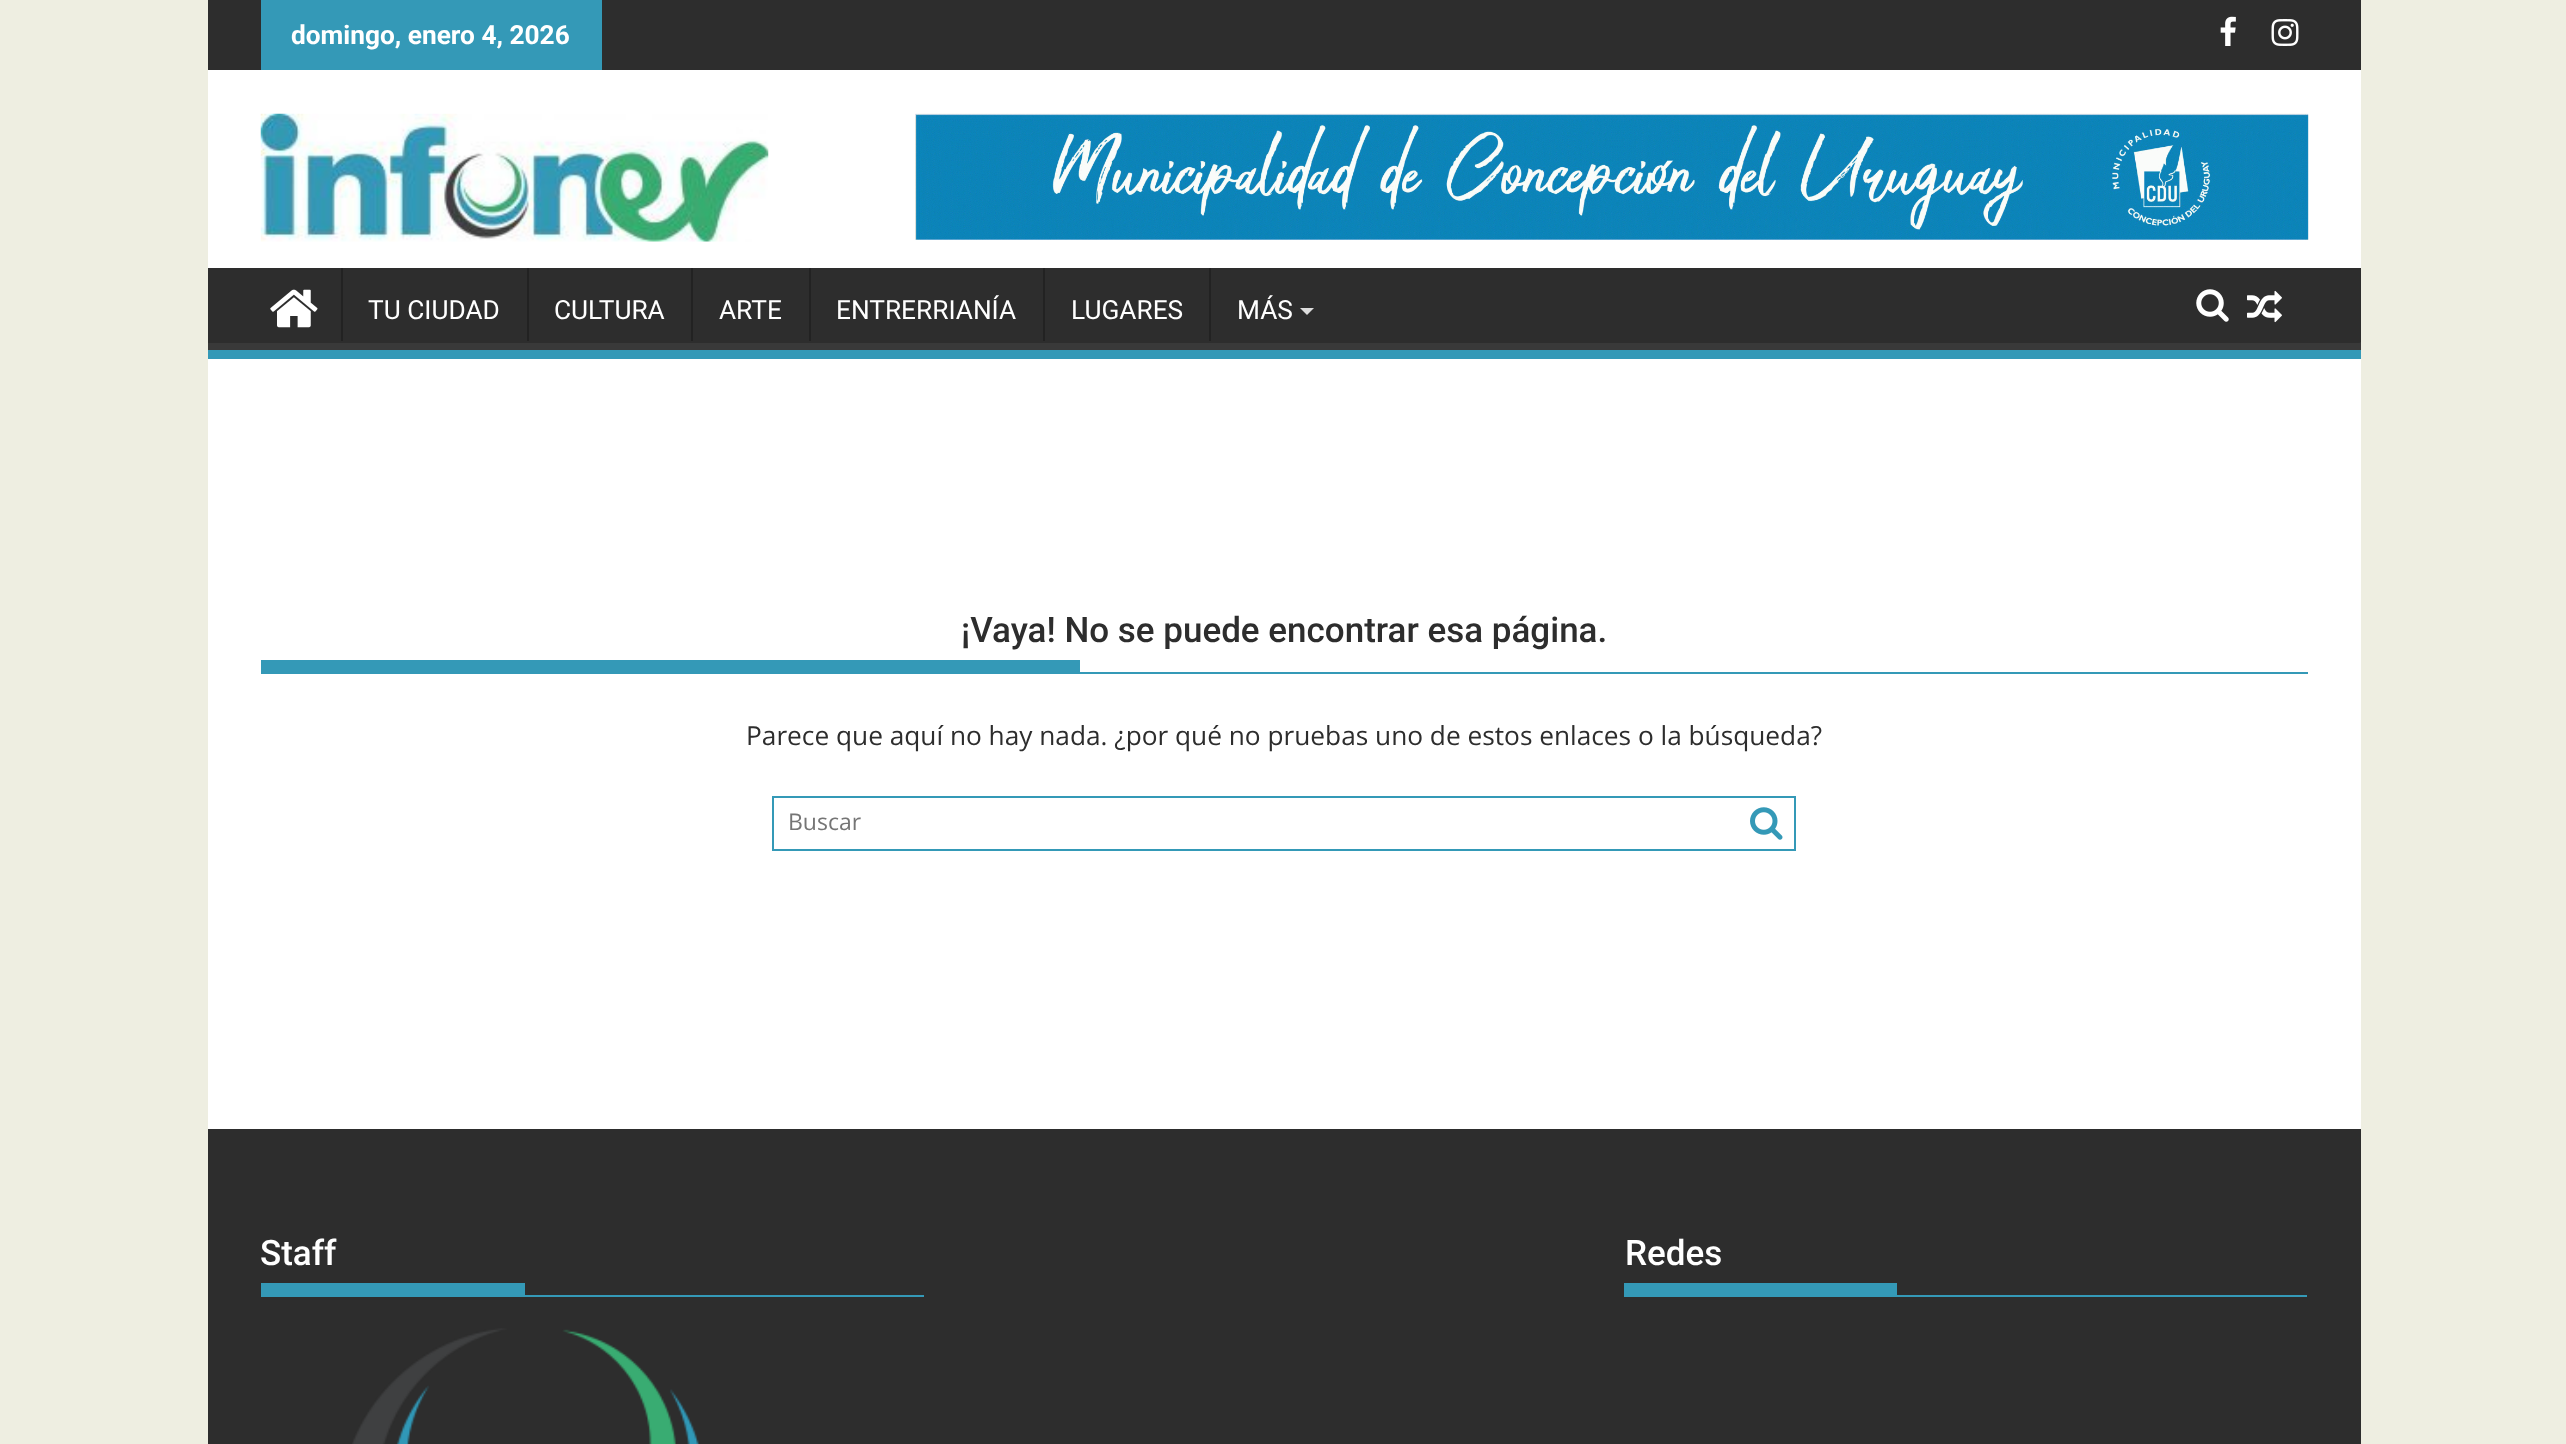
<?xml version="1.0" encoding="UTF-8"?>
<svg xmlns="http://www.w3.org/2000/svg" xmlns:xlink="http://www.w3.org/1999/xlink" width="2566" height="1444">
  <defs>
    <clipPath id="clip1"><rect x="208" y="268" width="2153" height="82" /></clipPath>
  </defs>
  <rect width="100%" height="100%" fill="#eeeee1" />
  <rect x="208" y="70" width="2153" height="1059" fill="#ffffff" />
  <rect x="208" width="2153" height="70" fill="#2d2d2d" />
  <rect x="261" width="341" height="70" fill="#3499b7" />
  <image x="2220" y="16" width="16" height="30" xlink:href="image1.png" />
  <image x="2271" y="19" width="28" height="27" xlink:href="image2.png" />
  <image x="260" y="113" width="509" height="129" xlink:href="image3.png" />
  <image x="915" y="113" width="1394" height="127" xlink:href="image4.png" />
  <rect x="208" y="268" width="2153" height="75" fill="#2d2d2d" />
  <g clip-path="url(#clip1)">
    <path d="M 35 94 h 2499 v 429 h -2499 z m 171 163 h 2153 c 1 0 2 1 2 2 v 82 c 0 1 -1 2 -2 2 h -2153 c 0 0 -1 -1 -1 -2 v -82 c 0 -1 1 -2 1 -2 z" fill="#393939" fill-rule="evenodd" />
  </g>
  <rect x="208" y="350" width="2153" height="9" fill="#3499b7" />
  <image x="270" y="289" width="48" height="39" xlink:href="image5.png" />
  <rect x="341" y="268" width="2" height="73" fill="#222222" />
  <rect x="527" y="268" width="2" height="73" fill="#222222" />
  <rect x="691" y="268" width="2" height="73" fill="#222222" />
  <rect x="809" y="268" width="2" height="73" fill="#222222" />
  <rect x="1043" y="268" width="2" height="73" fill="#222222" />
  <rect x="1209" y="268" width="2" height="73" fill="#222222" />
  <path d="M 1300 308 h 14 l -7 7 z" fill="#dddddd" />
  <image x="2196" y="289" width="33" height="33" xlink:href="image6.png" />
  <image x="2247" y="290" width="35" height="33" xlink:href="image7.png" />
  <rect x="261" y="672" width="2047" height="2" fill="#3499b7" />
  <rect x="261" y="660" width="819" height="12" fill="#3499b7" />
  <rect x="773" y="797" width="1022" height="53" fill="none" stroke="#3499b7" stroke-width="2" />
  <image x="1750" y="807" width="33" height="33" xlink:href="image8.png" />
  <rect x="208" y="1129" width="2153" height="315" fill="#2d2d2d" />
  <rect x="261" y="1295" width="663" height="2" fill="#3499b7" />
  <rect x="261" y="1283" width="264" height="12" fill="#3499b7" />
  <image x="352" y="1328" width="347" height="116" xlink:href="image9.png" />
  <rect x="1624" y="1295" width="683" height="2" fill="#3499b7" />
  <rect x="1624" y="1283" width="273" height="12" fill="#3499b7" />
  <text x="291" y="44" style="font-family: Roboto; font-size: 26.25px; font-weight: bold; fill: #ffffff">domingo, enero 4, 2026</text>
  <text x="368" y="319" style="font-family: Roboto; font-size: 26.25px; fill: #ffffff">TU CIUDAD</text>
  <text x="554" y="319" style="font-family: Roboto; font-size: 26.25px; fill: #ffffff">CULTURA</text>
  <text x="719" y="319" style="font-family: Roboto; font-size: 26.25px; fill: #ffffff">ARTE</text>
  <text x="836" y="319" style="font-family: Roboto; font-size: 26.25px; fill: #ffffff">ENTRERRIANÍA</text>
  <text x="1071" y="319" style="font-family: Roboto; font-size: 26.25px; fill: #ffffff">LUGARES</text>
  <text x="1237" y="319" style="font-family: Roboto; font-size: 26.25px; fill: #ffffff">MÁS</text>
  <text x="961" y="642" style="font-family: Roboto; font-size: 35px; font-weight: 500; fill: #2d2d2d">¡Vaya! No se puede encontrar esa página.</text>
  <text x="746" y="745" style="font-family: Open Sans; font-size: 26.25px; fill: #2d2d2d">Parece que aquí no hay nada. ¿por qué no pruebas uno de estos enlaces o la búsqueda?</text>
  <text x="788" y="830" style="font-family: Open Sans; font-size: 23px; fill: #757575">Buscar</text>
  <text x="260" y="1265" style="font-family: Roboto; font-size: 35px; font-weight: 500; fill: #ffffff">Staff</text>
  <text x="1625" y="1265" style="font-family: Roboto; font-size: 35px; font-weight: 500; fill: #ffffff">Redes</text>
</svg>
